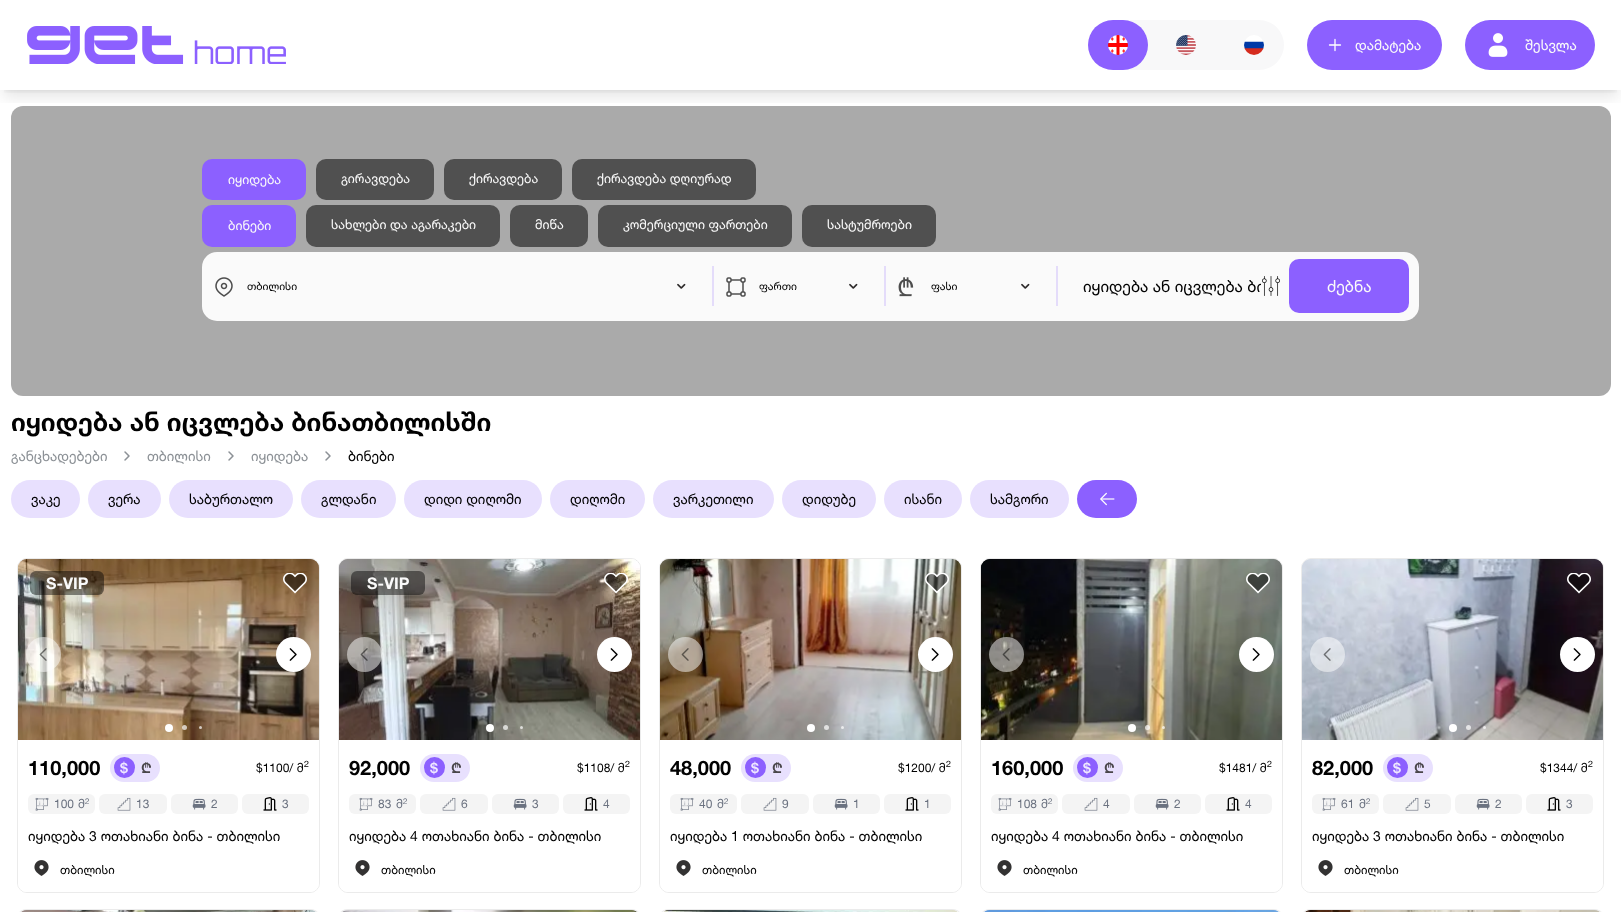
<?xml version="1.0" encoding="UTF-8"?>
<svg xmlns="http://www.w3.org/2000/svg" xmlns:xlink="http://www.w3.org/1999/xlink" width="1621" height="912">
  <defs>
    <clipPath id="clip1"><rect x="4" y="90" width="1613" height="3" /></clipPath>
    <clipPath id="clip2"><rect x="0" y="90" width="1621" height="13" /></clipPath>
    <clipPath id="clip3"><rect x="1083" y="274" width="178" height="24" /></clipPath>
  </defs>
  <rect width="100%" height="100%" fill="#ffffff" />
  <g clip-path="url(#clip1)">
    <rect x="4" y="8" width="1613" height="82" fill="#000000" fill-opacity="0.1" filter="blur(3px)" />
  </g>
  <g clip-path="url(#clip2)">
    <rect x="3" y="13" width="1615" height="84" fill="#000000" fill-opacity="0.1" filter="blur(7.5px)" />
  </g>
  <image x="27" y="26" width="259" height="38" xlink:href="image1.png" />
  <rect x="1088" y="20" width="196" height="50" rx="25" fill="#f8f8f9" />
  <rect x="1088" y="20" width="60" height="50" rx="25" fill="#8c60ff" />
  <image x="1108" y="35" width="20" height="20" xlink:href="image2.png" />
  <image x="1176" y="35" width="20" height="20" xlink:href="image3.png" />
  <image x="1244" y="35" width="20" height="20" xlink:href="image4.png" />
  <rect x="1307" y="20" width="135" height="50" rx="25" fill="#8c60ff" />
  <path d="M 1329.5 45 h 11 m -5.5 -5.5 v 11" fill="none" stroke="#ffffff" stroke-width="1.3" stroke-linecap="round" stroke-linejoin="round" />
  <rect x="1465" y="20" width="130" height="50" rx="25" fill="#8c60ff" />
  <image x="1488" y="33" width="20" height="24" xlink:href="image5.png" />
  <rect x="11" y="106" width="1600" height="290" rx="12" fill="#aaaaaa" />
  <rect x="202" y="252" width="1217" height="69" rx="15" fill="#fafafa" />
  <rect x="202" y="159" width="104" height="41" rx="10" fill="#8c60ff" />
  <rect x="316" y="159" width="118" height="41" rx="10" fill="#505050" />
  <rect x="444" y="159" width="118" height="41" rx="10" fill="#505050" />
  <rect x="572" y="159" width="184" height="41" rx="10" fill="#505050" />
  <rect x="202" y="205" width="94" height="42" rx="10" fill="#8c60ff" />
  <rect x="306" y="205" width="194" height="42" rx="10" fill="#505050" />
  <rect x="510" y="205" width="78" height="42" rx="10" fill="#505050" />
  <rect x="598" y="205" width="194" height="42" rx="10" fill="#505050" />
  <rect x="802" y="205" width="134" height="42" rx="10" fill="#505050" />
  <image x="215" y="277" width="18" height="20" xlink:href="image6.png" />
  <image x="677" y="283" width="9" height="6" xlink:href="image7.png" />
  <rect x="712" y="266" width="2" height="40" fill="#e4dcfa" />
  <image x="726" y="277" width="20" height="20" xlink:href="image8.png" />
  <image x="849" y="283" width="9" height="6" xlink:href="image7.png" />
  <rect x="884" y="266" width="2" height="40" fill="#e4dcfa" />
  <image x="898" y="277" width="16" height="20" xlink:href="image9.png" />
  <image x="1021" y="283" width="9" height="6" xlink:href="image7.png" />
  <rect x="1056" y="266" width="2" height="40" fill="#e4dcfa" />
  <image x="1262" y="276" width="18" height="20" xlink:href="image10.png" />
  <rect x="1289" y="259" width="120" height="54" rx="10" fill="#8c60ff" />
  <image x="124" y="451" width="6" height="10" xlink:href="image11.png" />
  <image x="228" y="451" width="6" height="10" xlink:href="image11.png" />
  <image x="325" y="451" width="6" height="10" xlink:href="image11.png" />
  <rect x="11" y="480" width="69" height="38" rx="19" fill="#e8e0fe" />
  <rect x="88" y="480" width="73" height="38" rx="19" fill="#e8e0fe" />
  <rect x="169" y="480" width="124" height="38" rx="19" fill="#e8e0fe" />
  <rect x="301" y="480" width="95" height="38" rx="19" fill="#e8e0fe" />
  <rect x="404" y="480" width="138" height="38" rx="19" fill="#e8e0fe" />
  <rect x="550" y="480" width="95" height="38" rx="19" fill="#e8e0fe" />
  <rect x="653" y="480" width="121" height="38" rx="19" fill="#e8e0fe" />
  <rect x="782" y="480" width="94" height="38" rx="19" fill="#e8e0fe" />
  <rect x="884" y="480" width="78" height="38" rx="19" fill="#e8e0fe" />
  <rect x="970" y="480" width="99" height="38" rx="19" fill="#e8e0fe" />
  <rect x="1077" y="480" width="60" height="38" rx="19" fill="#8c60ff" />
  <image x="1100" y="492" width="15" height="14" xlink:href="image12.png" />
  <rect x="17.5" y="558.5" width="302" height="334" rx="9.5" fill="none" stroke="#ebebeb" />
  <image x="18" y="559" width="301" height="181" xlink:href="image13.png" />
  <image x="18" y="559" width="301" height="181" xlink:href="image14.png" />
  <circle cx="43.5" cy="654.5" r="17.5" fill="#ffffff" fill-opacity="0.5" />
  <image x="39" y="648" width="8" height="13" xlink:href="image15.png" />
  <circle cx="293.5" cy="654.5" r="17.5" fill="#ffffff" />
  <image x="289" y="648" width="8" height="13" xlink:href="image16.png" />
  <circle cx="169" cy="728" r="4" fill="#ffffff" />
  <circle cx="184.5" cy="727.5" r="2.5" fill="#ffffff" fill-opacity="0.7" />
  <circle cx="200.5" cy="727.5" r="1.5" fill="#ffffff" fill-opacity="0.7" />
  <rect x="30" y="571" width="74" height="24" rx="6" fill="#000000" fill-opacity="0.45" />
  <image x="283" y="573" width="24" height="21" xlink:href="image17.png" />
  <path d="M 18 740 h 301 v 143 c 0 5 -4 9 -9 9 h -283 c -5 0 -9 -4 -9 -9 z" fill="#ffffff" />
  <rect x="110" y="754" width="50" height="28" rx="14" fill="#e8e0fe" />
  <circle cx="124.5" cy="767.5" r="10.5" fill="#8c60ff" />
  <image x="120" y="761" width="8" height="14" xlink:href="image18.png" />
  <image x="141" y="762" width="10" height="11" xlink:href="image19.png" />
  <rect x="28" y="794" width="67" height="20" rx="6" fill="#f4f4f4" />
  <image x="35" y="797" width="14" height="14" xlink:href="image20.png" />
  <rect x="99" y="794" width="68" height="20" rx="6" fill="#f4f4f4" />
  <image x="117" y="797" width="14" height="14" xlink:href="image21.png" />
  <rect x="171" y="794" width="67" height="20" rx="6" fill="#f4f4f4" />
  <image x="192" y="798" width="14" height="12" xlink:href="image22.png" />
  <rect x="242" y="794" width="67" height="20" rx="6" fill="#f4f4f4" />
  <image x="263" y="797" width="14" height="14" xlink:href="image23.png" />
  <image x="34" y="860" width="15" height="16" xlink:href="image24.png" />
  <rect x="338.5" y="558.5" width="302" height="334" rx="9.5" fill="none" stroke="#ebebeb" />
  <image x="339" y="559" width="301" height="181" xlink:href="image25.png" />
  <image x="339" y="559" width="301" height="181" xlink:href="image26.png" />
  <circle cx="364.5" cy="654.5" r="17.5" fill="#ffffff" fill-opacity="0.5" />
  <image x="360" y="648" width="8" height="13" xlink:href="image27.png" />
  <circle cx="614.5" cy="654.5" r="17.5" fill="#ffffff" />
  <image x="610" y="648" width="8" height="13" xlink:href="image16.png" />
  <circle cx="490" cy="728" r="4" fill="#ffffff" />
  <circle cx="505.5" cy="727.5" r="2.5" fill="#ffffff" fill-opacity="0.7" />
  <circle cx="521.5" cy="727.5" r="1.5" fill="#ffffff" fill-opacity="0.7" />
  <rect x="351" y="571" width="74" height="24" rx="6" fill="#000000" fill-opacity="0.45" />
  <image x="604" y="573" width="24" height="21" xlink:href="image28.png" />
  <path d="M 339 740 h 301 v 143 c 0 5 -4 9 -9 9 h -283 c -5 0 -9 -4 -9 -9 z" fill="#ffffff" />
  <rect x="420" y="754" width="50" height="28" rx="14" fill="#e8e0fe" />
  <circle cx="434.5" cy="767.5" r="10.5" fill="#8c60ff" />
  <image x="430" y="761" width="8" height="14" xlink:href="image18.png" />
  <image x="451" y="762" width="10" height="11" xlink:href="image19.png" />
  <rect x="349" y="794" width="67" height="20" rx="6" fill="#f4f4f4" />
  <image x="359" y="797" width="14" height="14" xlink:href="image20.png" />
  <rect x="420" y="794" width="68" height="20" rx="6" fill="#f4f4f4" />
  <image x="442" y="797" width="14" height="14" xlink:href="image21.png" />
  <rect x="492" y="794" width="67" height="20" rx="6" fill="#f4f4f4" />
  <image x="513" y="798" width="14" height="12" xlink:href="image22.png" />
  <rect x="563" y="794" width="67" height="20" rx="6" fill="#f4f4f4" />
  <image x="584" y="797" width="14" height="14" xlink:href="image23.png" />
  <image x="355" y="860" width="15" height="16" xlink:href="image24.png" />
  <rect x="659.5" y="558.5" width="302" height="334" rx="9.5" fill="none" stroke="#ebebeb" />
  <image x="660" y="559" width="301" height="181" xlink:href="image29.png" />
  <image x="660" y="559" width="301" height="181" xlink:href="image30.png" />
  <circle cx="685.5" cy="654.5" r="17.5" fill="#ffffff" fill-opacity="0.5" />
  <image x="681" y="648" width="8" height="13" xlink:href="image31.png" />
  <circle cx="935.5" cy="654.5" r="17.5" fill="#ffffff" />
  <image x="931" y="648" width="8" height="13" xlink:href="image16.png" />
  <circle cx="811" cy="728" r="4" fill="#ffffff" />
  <circle cx="826.5" cy="727.5" r="2.5" fill="#ffffff" fill-opacity="0.7" />
  <circle cx="842.5" cy="727.5" r="1.5" fill="#ffffff" fill-opacity="0.7" />
  <image x="925" y="573" width="24" height="21" xlink:href="image32.png" />
  <path d="M 660 740 h 301 v 143 c 0 5 -4 9 -9 9 h -283 c -5 0 -9 -4 -9 -9 z" fill="#ffffff" />
  <rect x="741" y="754" width="50" height="28" rx="14" fill="#e8e0fe" />
  <circle cx="755.5" cy="767.5" r="10.5" fill="#8c60ff" />
  <image x="751" y="761" width="8" height="14" xlink:href="image18.png" />
  <image x="772" y="762" width="10" height="11" xlink:href="image19.png" />
  <rect x="670" y="794" width="67" height="20" rx="6" fill="#f4f4f4" />
  <image x="680" y="797" width="14" height="14" xlink:href="image20.png" />
  <rect x="741" y="794" width="68" height="20" rx="6" fill="#f4f4f4" />
  <image x="763" y="797" width="14" height="14" xlink:href="image21.png" />
  <rect x="813" y="794" width="67" height="20" rx="6" fill="#f4f4f4" />
  <image x="834" y="798" width="14" height="12" xlink:href="image22.png" />
  <rect x="884" y="794" width="67" height="20" rx="6" fill="#f4f4f4" />
  <image x="905" y="797" width="14" height="14" xlink:href="image23.png" />
  <image x="676" y="860" width="15" height="16" xlink:href="image24.png" />
  <rect x="980.5" y="558.5" width="302" height="334" rx="9.5" fill="none" stroke="#ebebeb" />
  <image x="981" y="559" width="301" height="181" xlink:href="image33.png" />
  <image x="981" y="559" width="301" height="181" xlink:href="image34.png" />
  <circle cx="1006.5" cy="654.5" r="17.5" fill="#ffffff" fill-opacity="0.5" />
  <image x="1002" y="648" width="8" height="13" xlink:href="image35.png" />
  <circle cx="1256.5" cy="654.5" r="17.5" fill="#ffffff" />
  <image x="1252" y="648" width="8" height="13" xlink:href="image16.png" />
  <circle cx="1132" cy="728" r="4" fill="#ffffff" />
  <circle cx="1147.5" cy="727.5" r="2.5" fill="#ffffff" fill-opacity="0.7" />
  <circle cx="1163.5" cy="727.5" r="1.5" fill="#ffffff" fill-opacity="0.7" />
  <image x="1246" y="573" width="24" height="21" xlink:href="image36.png" />
  <path d="M 981 740 h 301 v 143 c 0 5 -4 9 -9 9 h -283 c -5 0 -9 -4 -9 -9 z" fill="#ffffff" />
  <rect x="1073" y="754" width="50" height="28" rx="14" fill="#e8e0fe" />
  <circle cx="1087.5" cy="767.5" r="10.5" fill="#8c60ff" />
  <image x="1083" y="761" width="8" height="14" xlink:href="image18.png" />
  <image x="1104" y="762" width="10" height="11" xlink:href="image19.png" />
  <rect x="991" y="794" width="67" height="20" rx="6" fill="#f4f4f4" />
  <image x="998" y="797" width="14" height="14" xlink:href="image20.png" />
  <rect x="1062" y="794" width="68" height="20" rx="6" fill="#f4f4f4" />
  <image x="1084" y="797" width="14" height="14" xlink:href="image21.png" />
  <rect x="1134" y="794" width="67" height="20" rx="6" fill="#f4f4f4" />
  <image x="1155" y="798" width="14" height="12" xlink:href="image22.png" />
  <rect x="1205" y="794" width="67" height="20" rx="6" fill="#f4f4f4" />
  <image x="1226" y="797" width="14" height="14" xlink:href="image23.png" />
  <image x="997" y="860" width="15" height="16" xlink:href="image24.png" />
  <rect x="1301.5" y="558.5" width="302" height="334" rx="9.5" fill="none" stroke="#ebebeb" />
  <image x="1302" y="559" width="301" height="181" xlink:href="image37.png" />
  <image x="1302" y="559" width="301" height="181" xlink:href="image38.png" />
  <circle cx="1327.5" cy="654.5" r="17.5" fill="#ffffff" fill-opacity="0.5" />
  <image x="1323" y="648" width="8" height="13" xlink:href="image39.png" />
  <circle cx="1577.5" cy="654.5" r="17.5" fill="#ffffff" />
  <image x="1573" y="648" width="8" height="13" xlink:href="image16.png" />
  <circle cx="1453" cy="728" r="4" fill="#ffffff" />
  <circle cx="1468.5" cy="727.5" r="2.5" fill="#ffffff" fill-opacity="0.7" />
  <circle cx="1484.5" cy="727.5" r="1.5" fill="#ffffff" fill-opacity="0.7" />
  <image x="1567" y="573" width="24" height="21" xlink:href="image40.png" />
  <path d="M 1302 740 h 301 v 143 c 0 5 -4 9 -9 9 h -283 c -5 0 -9 -4 -9 -9 z" fill="#ffffff" />
  <rect x="1383" y="754" width="50" height="28" rx="14" fill="#e8e0fe" />
  <circle cx="1397.5" cy="767.5" r="10.5" fill="#8c60ff" />
  <image x="1393" y="761" width="8" height="14" xlink:href="image18.png" />
  <image x="1414" y="762" width="10" height="11" xlink:href="image19.png" />
  <rect x="1312" y="794" width="67" height="20" rx="6" fill="#f4f4f4" />
  <image x="1322" y="797" width="14" height="14" xlink:href="image20.png" />
  <rect x="1383" y="794" width="68" height="20" rx="6" fill="#f4f4f4" />
  <image x="1405" y="797" width="14" height="14" xlink:href="image21.png" />
  <rect x="1455" y="794" width="67" height="20" rx="6" fill="#f4f4f4" />
  <image x="1476" y="798" width="14" height="12" xlink:href="image22.png" />
  <rect x="1526" y="794" width="67" height="20" rx="6" fill="#f4f4f4" />
  <image x="1547" y="797" width="14" height="14" xlink:href="image23.png" />
  <image x="1318" y="860" width="15" height="16" xlink:href="image24.png" />
  <rect x="17.5" y="909.5" width="302" height="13" rx="9.5" fill="none" stroke="#ebebeb" />
  <image x="21" y="910" width="295" height="2" xlink:href="image41.png" />
  <image x="21" y="910" width="295" height="2" xlink:href="image42.png" />
  <rect x="338.5" y="909.5" width="302" height="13" rx="9.5" fill="none" stroke="#ebebeb" />
  <image x="342" y="910" width="295" height="2" xlink:href="image43.png" />
  <image x="342" y="910" width="295" height="2" xlink:href="image44.png" />
  <rect x="659.5" y="909.5" width="302" height="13" rx="9.5" fill="none" stroke="#ebebeb" />
  <image x="663" y="910" width="295" height="2" xlink:href="image45.png" />
  <image x="664" y="910" width="293" height="2" xlink:href="image46.png" />
  <rect x="980.5" y="909.5" width="302" height="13" rx="9.5" fill="none" stroke="#ebebeb" />
  <image x="984" y="910" width="295" height="2" xlink:href="image47.png" />
  <image x="984" y="910" width="295" height="2" xlink:href="image48.png" />
  <rect x="1301.5" y="909.5" width="302" height="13" rx="9.5" fill="none" stroke="#ebebeb" />
  <image x="1305" y="910" width="295" height="2" xlink:href="image49.png" />
  <image x="1305" y="910" width="295" height="2" xlink:href="image50.png" />
  <text x="1355" y="50" style="font-family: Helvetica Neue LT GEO; font-size: 14px; fill: #fafafa">დამატება</text>
  <text x="1525" y="50" style="font-family: Helvetica Neue LT GEO; font-size: 14px; fill: #fafafa">შესვლა</text>
  <text x="228" y="184" style="font-family: Helvetica Neue LT GEO; font-size: 13px; fill: #fafafa">იყიდება</text>
  <text x="341" y="183" style="font-family: Helvetica Neue LT GEO; font-size: 13px; fill: #fafafa">გირავდება</text>
  <text x="469" y="183" style="font-family: Helvetica Neue LT GEO; font-size: 13px; fill: #fafafa">ქირავდება</text>
  <text x="597" y="183" style="font-family: Helvetica Neue LT GEO; font-size: 13px; fill: #fafafa">ქირავდება დღიურად</text>
  <text x="228" y="230" style="font-family: Helvetica Neue LT GEO; font-size: 13px; fill: #fafafa">ბინები</text>
  <text x="331" y="229" style="font-family: Helvetica Neue LT GEO; font-size: 13px; fill: #fafafa">სახლები და აგარაკები</text>
  <text x="535" y="229" style="font-family: Helvetica Neue LT GEO; font-size: 13px; fill: #fafafa">მიწა</text>
  <text x="623" y="229" style="font-family: Helvetica Neue LT GEO; font-size: 13px; fill: #fafafa">კომერციული ფართები</text>
  <text x="827" y="229" style="font-family: Helvetica Neue LT GEO; font-size: 13px; fill: #fafafa">სასტუმროები</text>
  <text x="247" y="290" style="font-family: Helvetica Neue LT GEO; font-size: 11px; fill: #010101">თბილისი</text>
  <text x="759" y="290" style="font-family: Helvetica Neue LT GEO; font-size: 11px; fill: #010101">ფართი</text>
  <text x="931" y="290" style="font-family: Helvetica Neue LT GEO; font-size: 11px; fill: #010101">ფასი</text>
  <g clip-path="url(#clip3)">
    <text x="1083" y="292" style="font-family: Helvetica Neue LT GEO; font-size: 16px; fill: #010101">იყიდება ან იცვლება ბი</text>
  </g>
  <text x="1327" y="292" style="font-family: Helvetica Neue LT GEO; font-size: 16px; fill: #fafafa">ძებნა</text>
  <text x="11" y="431" style="font-family: Helvetica Neue LT GEO; font-size: 26px; font-weight: bold; fill: #010101">იყიდება ან იცვლება ბინათბილისში</text>
  <text x="11" y="461" style="font-family: Helvetica Neue LT GEO; font-size: 14px; fill: #8c9196">განცხადებები</text>
  <text x="147" y="461" style="font-family: Helvetica Neue LT GEO; font-size: 14px; fill: #8c9196">თბილისი</text>
  <text x="251" y="461" style="font-family: Helvetica Neue LT GEO; font-size: 14px; fill: #8c9196">იყიდება</text>
  <text x="348" y="461" style="font-family: Helvetica Neue LT GEO; font-size: 14px; fill: #010101">ბინები</text>
  <text x="31" y="504" style="font-family: Helvetica Neue LT GEO; font-size: 14px; fill: #010101">ვაკე</text>
  <text x="108" y="504" style="font-family: Helvetica Neue LT GEO; font-size: 14px; fill: #010101">ვერა</text>
  <text x="189" y="504" style="font-family: Helvetica Neue LT GEO; font-size: 14px; fill: #010101">საბურთალო</text>
  <text x="321" y="504" style="font-family: Helvetica Neue LT GEO; font-size: 14px; fill: #010101">გლდანი</text>
  <text x="424" y="504" style="font-family: Helvetica Neue LT GEO; font-size: 14px; fill: #010101">დიდი დიღომი</text>
  <text x="570" y="504" style="font-family: Helvetica Neue LT GEO; font-size: 14px; fill: #010101">დიღომი</text>
  <text x="673" y="504" style="font-family: Helvetica Neue LT GEO; font-size: 14px; fill: #010101">ვარკეთილი</text>
  <text x="802" y="504" style="font-family: Helvetica Neue LT GEO; font-size: 14px; fill: #010101">დიდუბე</text>
  <text x="904" y="504" style="font-family: Helvetica Neue LT GEO; font-size: 14px; fill: #010101">ისანი</text>
  <text x="990" y="504" style="font-family: Helvetica Neue LT GEO; font-size: 14px; fill: #010101">სამგორი</text>
  <text x="46" y="589" style="font-family: Helvetica Neue LT GEO; font-size: 16px; font-weight: bold; fill: #fafafa">S-VIP</text>
  <text x="28" y="775" style="font-family: Helvetica Neue LT GEO; font-size: 20px; font-weight: bold; fill: #010101">110,000</text>
  <text x="256" y="772" style="font-family: Helvetica Neue LT GEO; font-size: 12px; fill: #010101">$1100/ მ</text>
  <text x="304" y="767" style="font-family: Helvetica Neue LT GEO; font-size: 9px; fill: #010101">2</text>
  <text x="54" y="808" style="font-family: Helvetica Neue LT GEO; font-size: 12px; fill: #6b7280">100</text>
  <text x="78" y="808" style="font-family: Helvetica Neue LT GEO; font-size: 12px; fill: #6b7280">მ</text>
  <text x="85" y="804" style="font-family: Helvetica Neue LT GEO; font-size: 8px; fill: #6b7280">2</text>
  <text x="136" y="808" style="font-family: Helvetica Neue LT GEO; font-size: 12px; fill: #6b7280">13</text>
  <text x="211" y="808" style="font-family: Helvetica Neue LT GEO; font-size: 12px; fill: #6b7280">2</text>
  <text x="282" y="808" style="font-family: Helvetica Neue LT GEO; font-size: 12px; fill: #6b7280">3</text>
  <text x="28" y="841" style="font-family: Helvetica Neue LT GEO; font-size: 14px; fill: #010101">იყიდება 3 ოთახიანი ბინა - თბილისი</text>
  <text x="60" y="874" style="font-family: Helvetica Neue LT GEO; font-size: 12px; fill: #010101">თბილისი</text>
  <text x="367" y="589" style="font-family: Helvetica Neue LT GEO; font-size: 16px; font-weight: bold; fill: #fafafa">S-VIP</text>
  <text x="349" y="775" style="font-family: Helvetica Neue LT GEO; font-size: 20px; font-weight: bold; fill: #010101">92,000</text>
  <text x="577" y="772" style="font-family: Helvetica Neue LT GEO; font-size: 12px; fill: #010101">$1108/ მ</text>
  <text x="625" y="767" style="font-family: Helvetica Neue LT GEO; font-size: 9px; fill: #010101">2</text>
  <text x="378" y="808" style="font-family: Helvetica Neue LT GEO; font-size: 12px; fill: #6b7280">83</text>
  <text x="396" y="808" style="font-family: Helvetica Neue LT GEO; font-size: 12px; fill: #6b7280">მ</text>
  <text x="403" y="804" style="font-family: Helvetica Neue LT GEO; font-size: 8px; fill: #6b7280">2</text>
  <text x="461" y="808" style="font-family: Helvetica Neue LT GEO; font-size: 12px; fill: #6b7280">6</text>
  <text x="532" y="808" style="font-family: Helvetica Neue LT GEO; font-size: 12px; fill: #6b7280">3</text>
  <text x="603" y="808" style="font-family: Helvetica Neue LT GEO; font-size: 12px; fill: #6b7280">4</text>
  <text x="349" y="841" style="font-family: Helvetica Neue LT GEO; font-size: 14px; fill: #010101">იყიდება 4 ოთახიანი ბინა - თბილისი</text>
  <text x="381" y="874" style="font-family: Helvetica Neue LT GEO; font-size: 12px; fill: #010101">თბილისი</text>
  <text x="670" y="775" style="font-family: Helvetica Neue LT GEO; font-size: 20px; font-weight: bold; fill: #010101">48,000</text>
  <text x="898" y="772" style="font-family: Helvetica Neue LT GEO; font-size: 12px; fill: #010101">$1200/ მ</text>
  <text x="946" y="767" style="font-family: Helvetica Neue LT GEO; font-size: 9px; fill: #010101">2</text>
  <text x="699" y="808" style="font-family: Helvetica Neue LT GEO; font-size: 12px; fill: #6b7280">40</text>
  <text x="717" y="808" style="font-family: Helvetica Neue LT GEO; font-size: 12px; fill: #6b7280">მ</text>
  <text x="724" y="804" style="font-family: Helvetica Neue LT GEO; font-size: 8px; fill: #6b7280">2</text>
  <text x="782" y="808" style="font-family: Helvetica Neue LT GEO; font-size: 12px; fill: #6b7280">9</text>
  <text x="853" y="808" style="font-family: Helvetica Neue LT GEO; font-size: 12px; fill: #6b7280">1</text>
  <text x="924" y="808" style="font-family: Helvetica Neue LT GEO; font-size: 12px; fill: #6b7280">1</text>
  <text x="670" y="841" style="font-family: Helvetica Neue LT GEO; font-size: 14px; fill: #010101">იყიდება 1 ოთახიანი ბინა - თბილისი</text>
  <text x="702" y="874" style="font-family: Helvetica Neue LT GEO; font-size: 12px; fill: #010101">თბილისი</text>
  <text x="991" y="775" style="font-family: Helvetica Neue LT GEO; font-size: 20px; font-weight: bold; fill: #010101">160,000</text>
  <text x="1219" y="772" style="font-family: Helvetica Neue LT GEO; font-size: 12px; fill: #010101">$1481/ მ</text>
  <text x="1267" y="767" style="font-family: Helvetica Neue LT GEO; font-size: 9px; fill: #010101">2</text>
  <text x="1017" y="808" style="font-family: Helvetica Neue LT GEO; font-size: 12px; fill: #6b7280">108</text>
  <text x="1041" y="808" style="font-family: Helvetica Neue LT GEO; font-size: 12px; fill: #6b7280">მ</text>
  <text x="1048" y="804" style="font-family: Helvetica Neue LT GEO; font-size: 8px; fill: #6b7280">2</text>
  <text x="1103" y="808" style="font-family: Helvetica Neue LT GEO; font-size: 12px; fill: #6b7280">4</text>
  <text x="1174" y="808" style="font-family: Helvetica Neue LT GEO; font-size: 12px; fill: #6b7280">2</text>
  <text x="1245" y="808" style="font-family: Helvetica Neue LT GEO; font-size: 12px; fill: #6b7280">4</text>
  <text x="991" y="841" style="font-family: Helvetica Neue LT GEO; font-size: 14px; fill: #010101">იყიდება 4 ოთახიანი ბინა - თბილისი</text>
  <text x="1023" y="874" style="font-family: Helvetica Neue LT GEO; font-size: 12px; fill: #010101">თბილისი</text>
  <text x="1312" y="775" style="font-family: Helvetica Neue LT GEO; font-size: 20px; font-weight: bold; fill: #010101">82,000</text>
  <text x="1540" y="772" style="font-family: Helvetica Neue LT GEO; font-size: 12px; fill: #010101">$1344/ მ</text>
  <text x="1588" y="767" style="font-family: Helvetica Neue LT GEO; font-size: 9px; fill: #010101">2</text>
  <text x="1341" y="808" style="font-family: Helvetica Neue LT GEO; font-size: 12px; fill: #6b7280">61</text>
  <text x="1359" y="808" style="font-family: Helvetica Neue LT GEO; font-size: 12px; fill: #6b7280">მ</text>
  <text x="1366" y="804" style="font-family: Helvetica Neue LT GEO; font-size: 8px; fill: #6b7280">2</text>
  <text x="1424" y="808" style="font-family: Helvetica Neue LT GEO; font-size: 12px; fill: #6b7280">5</text>
  <text x="1495" y="808" style="font-family: Helvetica Neue LT GEO; font-size: 12px; fill: #6b7280">2</text>
  <text x="1566" y="808" style="font-family: Helvetica Neue LT GEO; font-size: 12px; fill: #6b7280">3</text>
  <text x="1312" y="841" style="font-family: Helvetica Neue LT GEO; font-size: 14px; fill: #010101">იყიდება 3 ოთახიანი ბინა - თბილისი</text>
  <text x="1344" y="874" style="font-family: Helvetica Neue LT GEO; font-size: 12px; fill: #010101">თბილისი</text>
</svg>
